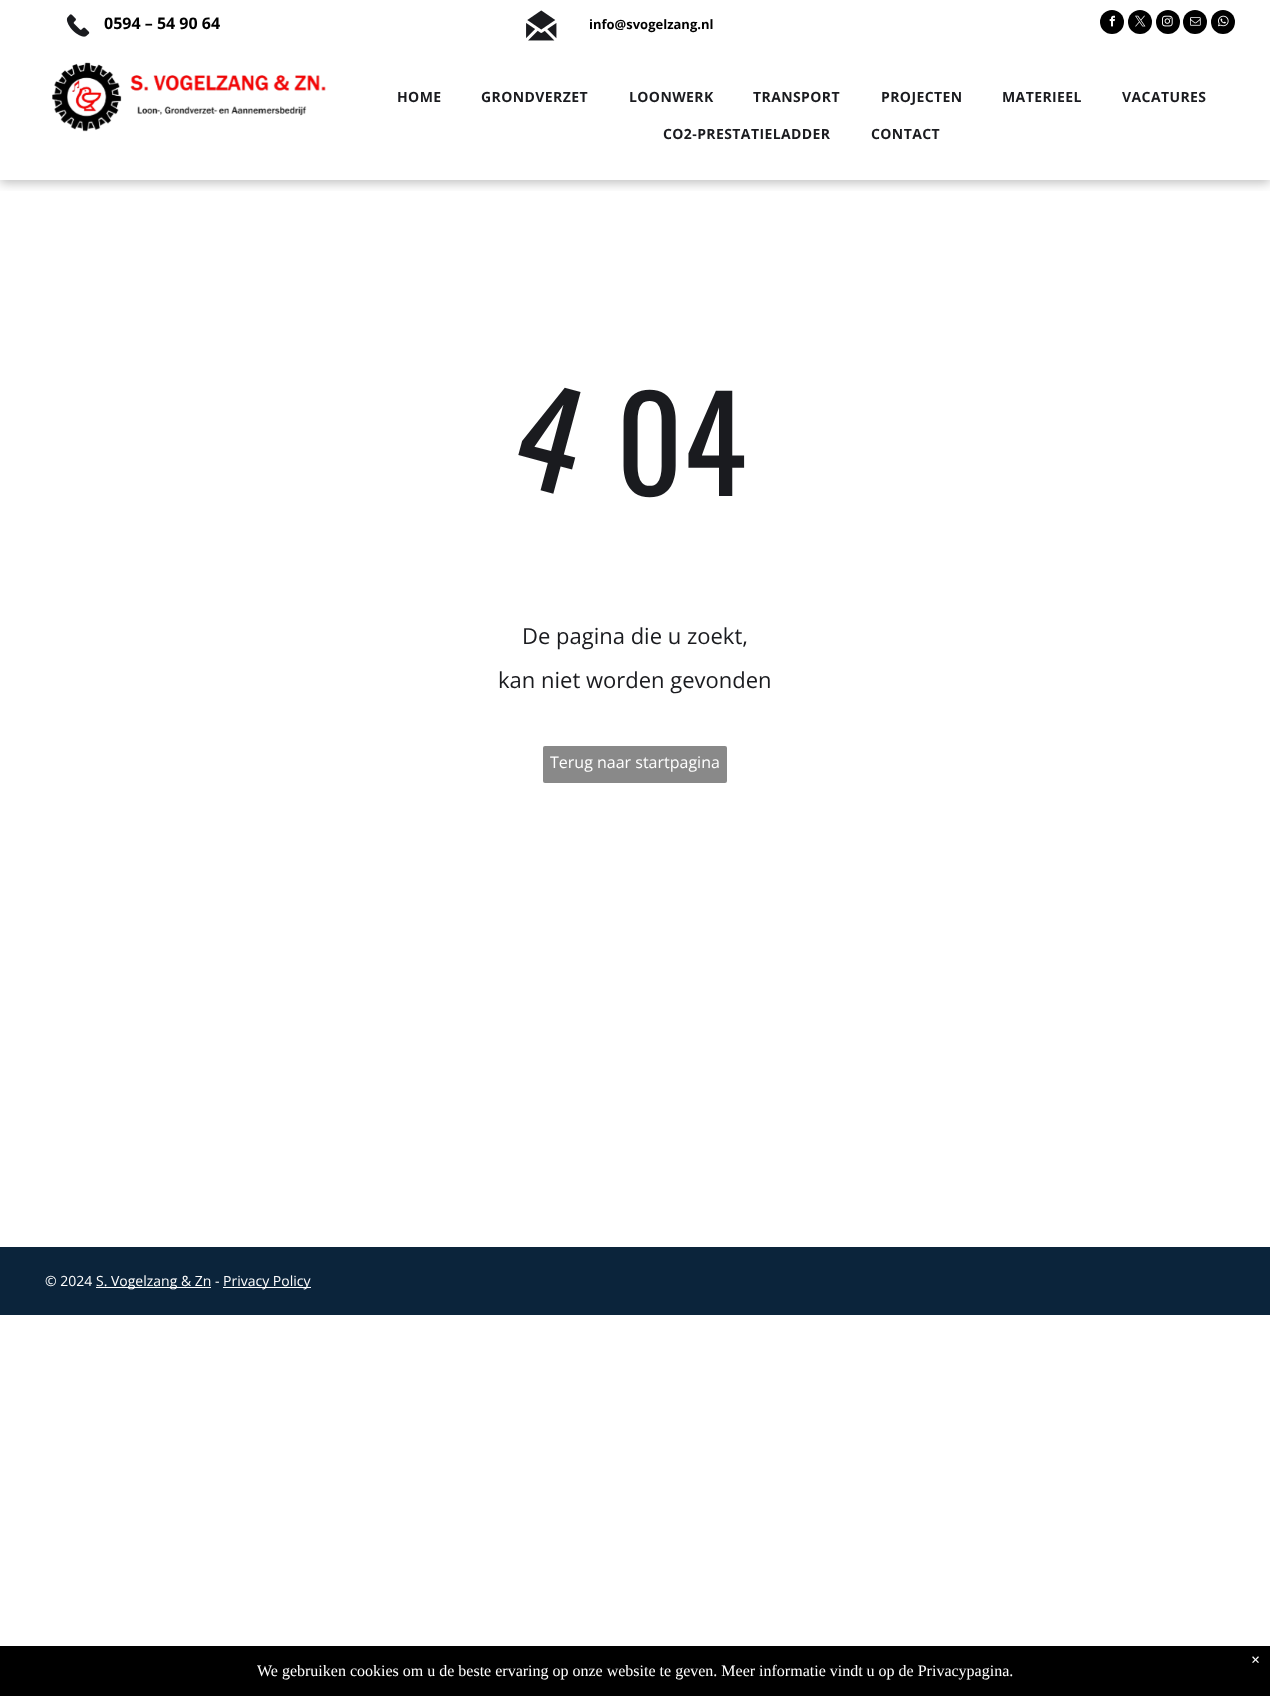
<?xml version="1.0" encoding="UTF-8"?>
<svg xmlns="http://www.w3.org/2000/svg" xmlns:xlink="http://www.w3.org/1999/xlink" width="1270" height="1696">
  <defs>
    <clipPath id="clip1"><rect x="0" y="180" width="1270" height="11" /></clipPath>
  </defs>
  <rect width="100%" height="100%" fill="#ffffff" />
  <g clip-path="url(#clip1)">
    <rect y="3" width="1270" height="180" fill="#000000" fill-opacity="0.25" filter="blur(5.5px)" />
  </g>
  <image x="66" y="14" width="24" height="23" xlink:href="image1.png" />
  <image x="526" y="10" width="31" height="31" xlink:href="image2.png" />
  <circle cx="1112" cy="22" r="12" fill="#000000" />
  <image x="1109" y="15" width="6" height="12" xlink:href="image3.png" />
  <circle cx="1140" cy="22" r="12" fill="#000000" />
  <image x="1135" y="15" width="11" height="12" xlink:href="image4.png" />
  <circle cx="1168" cy="22" r="12" fill="#000000" />
  <image x="1162" y="15" width="11" height="12" xlink:href="image5.png" />
  <circle cx="1195" cy="22" r="12" fill="#000000" />
  <image x="1190" y="17" width="11" height="9" xlink:href="image6.png" />
  <circle cx="1223" cy="22" r="12" fill="#000000" />
  <image x="1218" y="15" width="11" height="12" xlink:href="image7.png" />
  <image x="52" y="62" width="274" height="70" xlink:href="image8.png" />
  <rect x="543" y="746" width="184" height="37" rx="2" fill="#898989" />
  <rect y="1247" width="1270" height="68" fill="#0b243b" />
  <rect x="96" y="1287" width="115" height="1" fill="#ffffff" />
  <rect x="223" y="1287" width="88" height="1" fill="#ffffff" />
  <rect y="1646" width="1270" height="50" fill="#000000" />
  <text x="104" y="29" style="font-family: Open Sans; font-size: 16px; font-weight: bold; fill: #000000">0594 – 54 90 64</text>
  <text x="589" y="29" style="font-family: Open Sans; font-size: 13px; font-weight: bold; fill: #000000">info@svogelzang.nl</text>
  <text x="397" y="102" style="font-family: Open Sans; font-size: 14px; font-weight: bold; letter-spacing: 0.4px; fill: #1a1b1f">HOME</text>
  <text x="481" y="102" style="font-family: Open Sans; font-size: 14px; font-weight: bold; letter-spacing: 0.4px; fill: #1a1b1f">GRONDVERZET</text>
  <text x="629" y="102" style="font-family: Open Sans; font-size: 14px; font-weight: bold; letter-spacing: 0.4px; fill: #1a1b1f">LOONWERK</text>
  <text x="753" y="102" style="font-family: Open Sans; font-size: 14px; font-weight: bold; letter-spacing: 0.4px; fill: #1a1b1f">TRANSPORT</text>
  <text x="881" y="102" style="font-family: Open Sans; font-size: 14px; font-weight: bold; letter-spacing: 0.4px; fill: #1a1b1f">PROJECTEN</text>
  <text x="1002" y="102" style="font-family: Open Sans; font-size: 14px; font-weight: bold; letter-spacing: 0.4px; fill: #1a1b1f">MATERIEEL</text>
  <text x="1122" y="102" style="font-family: Open Sans; font-size: 14px; font-weight: bold; letter-spacing: 0.4px; fill: #1a1b1f">VACATURES</text>
  <text x="663" y="139" style="font-family: Open Sans; font-size: 14px; font-weight: bold; letter-spacing: 0.4px; fill: #1a1b1f">CO2-PRESTATIELADDER</text>
  <text x="871" y="139" style="font-family: Open Sans; font-size: 14px; font-weight: bold; letter-spacing: 0.4px; fill: #1a1b1f">CONTACT</text>
  <text x="506" y="481" transform="rotate(15 506 481)" style="font-family: Oswald; font-size: 130px; fill: #1a1b1f">4</text>
  <text x="616" y="496" style="font-family: Oswald; font-size: 130px; fill: #1a1b1f">04</text>
  <text x="522" y="644" style="font-family: Open Sans; font-size: 22px; fill: #1a1b1f">De pagina die u zoekt,</text>
  <text x="498" y="688" style="font-family: Open Sans; font-size: 22px; fill: #1a1b1f">kan niet worden gevonden</text>
  <text x="550" y="768" style="font-family: Open Sans; font-size: 16px; fill: #ffffff">Terug naar startpagina</text>
  <text x="45" y="1286" style="font-family: Open Sans; font-size: 14px; fill: #ffffff">© 2024</text>
  <text x="96" y="1286" style="font-family: Open Sans; font-size: 14px; fill: #ffffff">S. Vogelzang &amp; Zn -</text>
  <text x="223" y="1286" style="font-family: Open Sans; font-size: 14px; fill: #ffffff">Privacy Policy</text>
  <text x="1251" y="1665" style="font-family: Liberation Serif; font-size: 16px; font-weight: bold; fill: #ffffff">×</text>
  <text x="257" y="1676" style="font-family: Liberation Serif; font-size: 16px; fill: #ffffff">We gebruiken cookies om u de beste ervaring op onze website te geven. Meer informatie vindt u op de Privacypagina.</text>
</svg>
